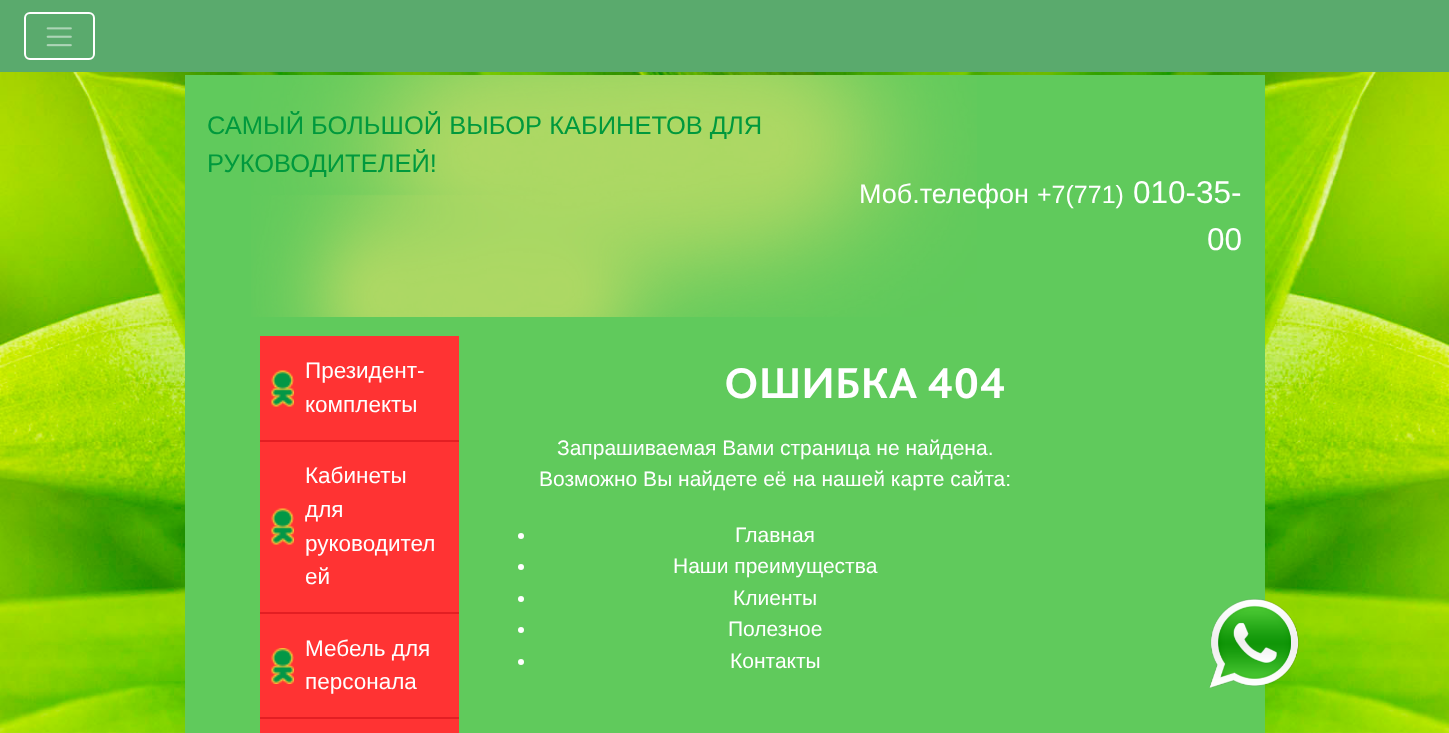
<?xml version="1.0" encoding="UTF-8"?>
<svg xmlns="http://www.w3.org/2000/svg" xmlns:xlink="http://www.w3.org/1999/xlink" width="1449" height="733">
  <rect width="100%" height="100%" fill="#ffffff" />
  <image x="0" y="72" width="1449" height="661" xlink:href="image1.png" />
  <rect x="185" y="75" width="1080" height="658" fill="#60ca5c" />
  <rect width="1449" height="72" fill="#5aaa6d" />
  <rect x="25" y="13" width="69" height="46" rx="5" fill="none" stroke="#ffffff" stroke-width="2" />
  <image x="46" y="27" width="26" height="20" xlink:href="image2.png" />
  <image x="251" y="75" width="726" height="242" xlink:href="image3.png" />
  <rect x="260" y="336" width="199" height="397" fill="#ff3333" />
  <image x="271" y="370" width="23" height="37" xlink:href="image4.png" />
  <rect x="260" y="440" width="199" height="2" fill="#e31e23" />
  <image x="271" y="508" width="23" height="37" xlink:href="image4.png" />
  <rect x="260" y="612" width="199" height="2" fill="#e31e23" />
  <image x="271" y="648" width="23" height="36" xlink:href="image5.png" />
  <rect x="260" y="717" width="199" height="2" fill="#e31e23" />
  <circle cx="521" cy="536" r="3" fill="#ffffff" />
  <circle cx="521" cy="567" r="3" fill="#ffffff" />
  <circle cx="521" cy="599" r="3" fill="#ffffff" />
  <circle cx="521" cy="630" r="3" fill="#ffffff" />
  <circle cx="521" cy="662" r="3" fill="#ffffff" />
  <image x="1209" y="598" width="90" height="90" xlink:href="image6.png" />
  <text x="207" y="134" style="font-family: Liberation Sans; font-size: 25.5px; fill: #00993d">САМЫЙ БОЛЬШОЙ ВЫБОР КАБИНЕТОВ ДЛЯ</text>
  <text x="207" y="172" style="font-family: Liberation Sans; font-size: 25.5px; fill: #00993d">РУКОВОДИТЕЛЕЙ!</text>
  <text x="859" y="203" style="font-family: Liberation Sans; font-size: 27px; fill: #ffffff">Моб.телефон</text>
  <text x="1037" y="203" style="font-family: Liberation Sans; font-size: 25px; fill: #ffffff">+7(771)</text>
  <text x="1133" y="203" style="font-family: Liberation Sans; font-size: 31.5px; fill: #ffffff">010-35-</text>
  <text x="1207" y="250" style="font-family: Liberation Sans; font-size: 31.5px; fill: #ffffff">00</text>
  <text x="305" y="378" style="font-family: Liberation Sans; font-size: 22.5px; fill: #ffffff">Президент-</text>
  <text x="305" y="412" style="font-family: Liberation Sans; font-size: 22.5px; fill: #ffffff">комплекты</text>
  <text x="305" y="483" style="font-family: Liberation Sans; font-size: 22.5px; fill: #ffffff">Кабинеты</text>
  <text x="305" y="517" style="font-family: Liberation Sans; font-size: 22.5px; fill: #ffffff">для</text>
  <text x="305" y="551" style="font-family: Liberation Sans; font-size: 22.5px; fill: #ffffff">руководител</text>
  <text x="305" y="584" style="font-family: Liberation Sans; font-size: 22.5px; fill: #ffffff">ей</text>
  <text x="305" y="656" style="font-family: Liberation Sans; font-size: 22.5px; fill: #ffffff">Мебель для</text>
  <text x="305" y="689" style="font-family: Liberation Sans; font-size: 22.5px; fill: #ffffff">персонала</text>
  <text x="724" y="398" style="font-family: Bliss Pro; font-size: 45px; font-weight: bold; fill: #ffffff">ОШИБКА 404</text>
  <text x="557" y="455" style="font-family: Liberation Sans; font-size: 21px; fill: #ffffff">Запрашиваемая Вами страница не найдена.</text>
  <text x="539" y="486" style="font-family: Liberation Sans; font-size: 21px; fill: #ffffff">Возможно Вы найдете её на нашей карте сайта:</text>
  <text x="735" y="542" style="font-family: Liberation Sans; font-size: 21px; fill: #ffffff">Главная</text>
  <text x="673" y="573" style="font-family: Liberation Sans; font-size: 21px; fill: #ffffff">Наши преимущества</text>
  <text x="733" y="605" style="font-family: Liberation Sans; font-size: 21px; fill: #ffffff">Клиенты</text>
  <text x="728" y="636" style="font-family: Liberation Sans; font-size: 21px; fill: #ffffff">Полезное</text>
  <text x="730" y="668" style="font-family: Liberation Sans; font-size: 21px; fill: #ffffff">Контакты</text>
</svg>
